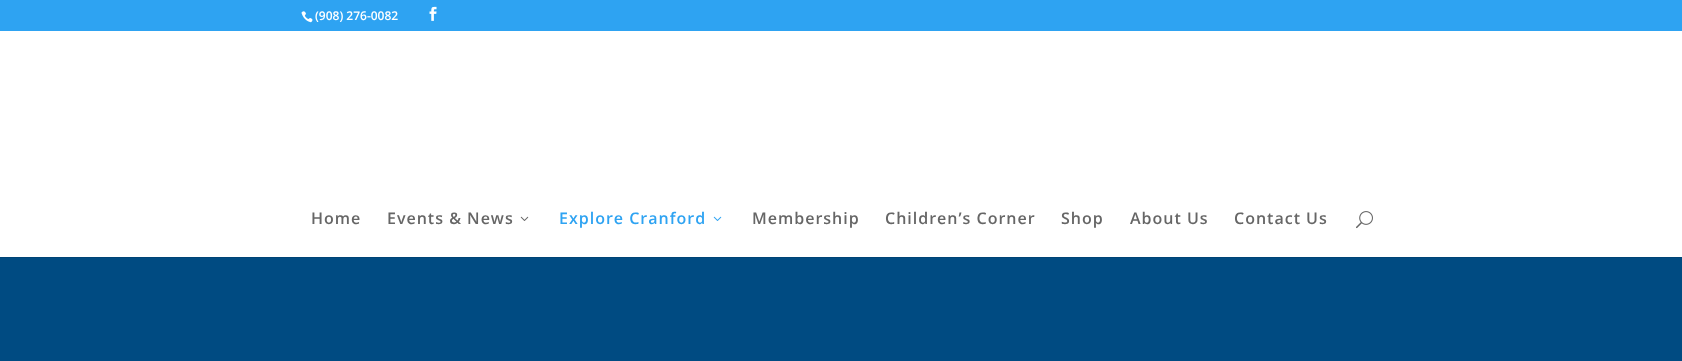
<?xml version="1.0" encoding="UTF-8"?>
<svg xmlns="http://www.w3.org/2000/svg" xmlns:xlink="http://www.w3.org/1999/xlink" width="1682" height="361">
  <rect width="100%" height="100%" fill="#ffffff" />
  <rect width="1682" height="31" fill="#2ea3f2" />
  <image x="301" y="11" width="12" height="12" xlink:href="image1.png" />
  <image x="429" y="6" width="8" height="15" xlink:href="image2.png" />
  <rect y="257" width="1682" height="1" fill="#004475" />
  <image x="520" y="216" width="9" height="5" xlink:href="image3.png" />
  <image x="713" y="216" width="9" height="5" xlink:href="image4.png" />
  <image x="1356" y="211" width="17" height="18" xlink:href="image5.png" />
  <rect y="258" width="1682" height="103" fill="#004b82" />
  <text x="315" y="20" style="font-family: Open Sans; font-size: 12px; font-weight: 600; fill: #ffffff">(908) 276-0082</text>
  <text x="311" y="224" style="font-family: Open Sans; font-size: 16px; font-weight: 600; letter-spacing: 1px; fill: #666666">Home</text>
  <text x="387" y="224" style="font-family: Open Sans; font-size: 16px; font-weight: 600; letter-spacing: 1px; fill: #666666">Events &amp; News</text>
  <text x="559" y="224" style="font-family: Open Sans; font-size: 16px; font-weight: 600; letter-spacing: 1px; fill: #2ea3f2">Explore Cranford</text>
  <text x="752" y="224" style="font-family: Open Sans; font-size: 16px; font-weight: 600; letter-spacing: 1px; fill: #666666">Membership</text>
  <text x="885" y="224" style="font-family: Open Sans; font-size: 16px; font-weight: 600; letter-spacing: 1px; fill: #666666">Children’s Corner</text>
  <text x="1061" y="224" style="font-family: Open Sans; font-size: 16px; font-weight: 600; letter-spacing: 1px; fill: #666666">Shop</text>
  <text x="1130" y="224" style="font-family: Open Sans; font-size: 16px; font-weight: 600; letter-spacing: 1px; fill: #666666">About Us</text>
  <text x="1234" y="224" style="font-family: Open Sans; font-size: 16px; font-weight: 600; letter-spacing: 1px; fill: #666666">Contact Us</text>
</svg>
